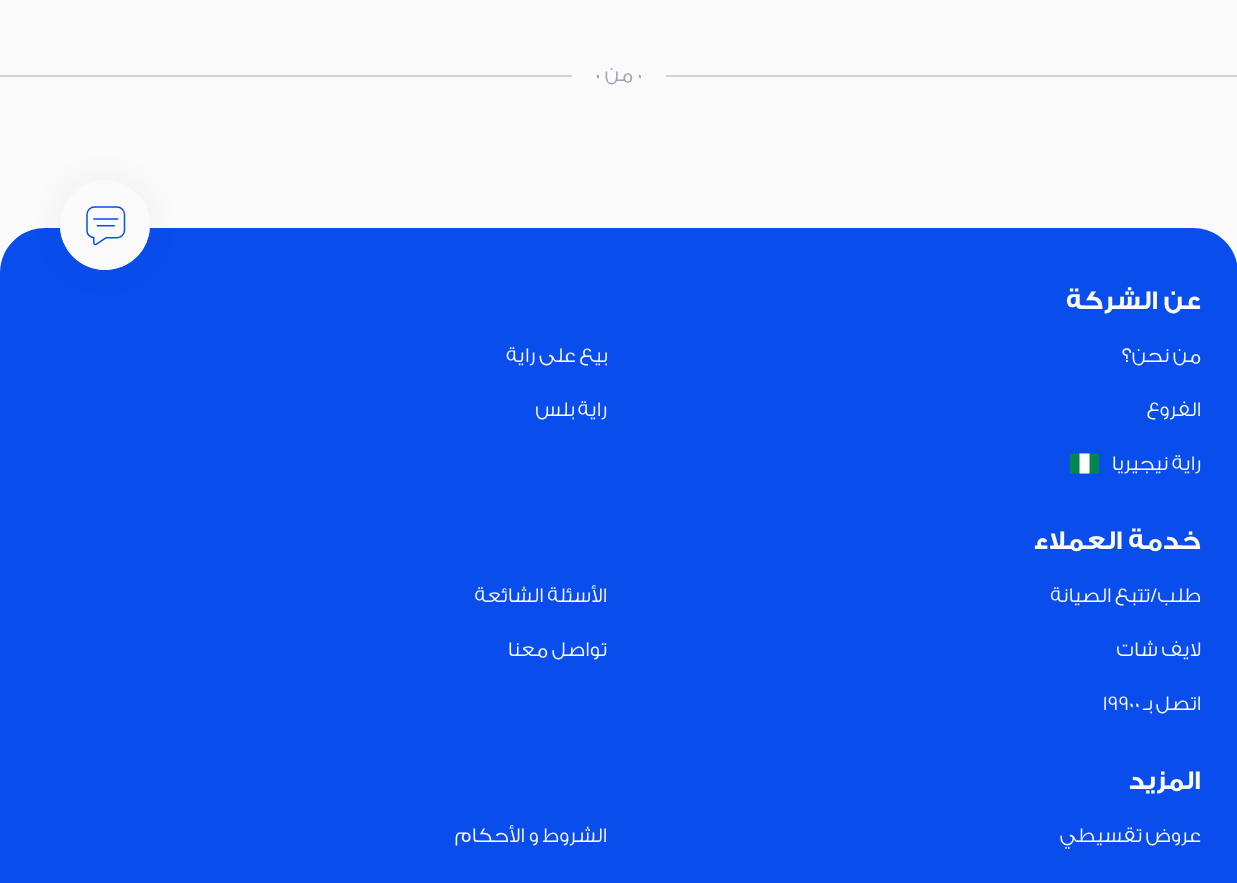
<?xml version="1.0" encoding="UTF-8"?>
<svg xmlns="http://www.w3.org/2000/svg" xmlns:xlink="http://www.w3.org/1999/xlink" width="1237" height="883">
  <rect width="100%" height="100%" fill="#fafafa" />
  <rect x="666" y="75" width="571" height="2" fill="#ccd2da" />
  <rect y="75" width="572" height="2" fill="#ccd2da" />
  <path d="M 45 228 h 1148 c 25 0 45 20 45 45 v 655 h -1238 v -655 c 0 -25 20 -45 45 -45 z" fill="#094eed" />
  <rect x="78" y="198" width="54" height="54" rx="27" fill="#001c46" fill-opacity="0.2" filter="blur(22.5px)" />
  <circle cx="105" cy="225" r="45" fill="#fafafa" />
  <image x="60" y="206" width="90" height="64" xlink:href="image1.png" />
  <image x="1069" y="453" width="31" height="21" xlink:href="image2.png" />
  <text x="637" y="81" style="font-family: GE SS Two; font-size: 21px; font-weight: 300; fill: #97a4b7">0</text>
  <text x="633" y="81" style="font-family: GE SS Two; font-size: 21px; font-weight: 300; direction: rtl; fill: #97a4b7">من</text>
  <text x="595" y="81" style="font-family: GE SS Two; font-size: 21px; font-weight: 300; fill: #97a4b7">0</text>
  <text x="1201" y="309" style="font-family: GE SS Two; font-size: 27px; font-weight: bold; direction: rtl; fill: #fafafa">عن الشركة</text>
  <text x="1201" y="362" style="font-family: GE SS Two; font-size: 21px; font-weight: 300; direction: rtl; fill: #fafafa">من نحن؟</text>
  <text x="607" y="362" style="font-family: GE SS Two; font-size: 21px; font-weight: 300; direction: rtl; fill: #fafafa">بيع على راية</text>
  <text x="1201" y="416" style="font-family: GE SS Two; font-size: 21px; font-weight: 300; direction: rtl; fill: #fafafa">الفروع</text>
  <text x="607" y="416" style="font-family: GE SS Two; font-size: 21px; font-weight: 300; direction: rtl; fill: #fafafa">راية بلس</text>
  <text x="1201" y="470" style="font-family: GE SS Two; font-size: 21px; font-weight: 300; direction: rtl; fill: #fafafa">راية نيجيريا</text>
  <text x="1201" y="549" style="font-family: GE SS Two; font-size: 27px; font-weight: bold; direction: rtl; fill: #fafafa">خدمة العملاء</text>
  <text x="1201" y="602" style="font-family: GE SS Two; font-size: 21px; font-weight: 300; direction: rtl; fill: #fafafa">طلب/تتبع الصيانة</text>
  <text x="607" y="602" style="font-family: GE SS Two; font-size: 21px; font-weight: 300; direction: rtl; fill: #fafafa">الأسئلة الشائعة</text>
  <text x="1201" y="656" style="font-family: GE SS Two; font-size: 21px; font-weight: 300; direction: rtl; fill: #fafafa">لايف شات</text>
  <text x="607" y="656" style="font-family: GE SS Two; font-size: 21px; font-weight: 300; direction: rtl; fill: #fafafa">تواصل معنا</text>
  <text x="1201" y="710" style="font-family: GE SS Two; font-size: 21px; font-weight: 300; direction: rtl; fill: #fafafa">اتصل بـ</text>
  <text x="1103" y="710" style="font-family: GE SS Two; font-size: 21px; font-weight: 300; fill: #fafafa">19900</text>
  <text x="1201" y="789" style="font-family: GE SS Two; font-size: 27px; font-weight: bold; direction: rtl; fill: #fafafa">المزيد</text>
  <text x="1201" y="842" style="font-family: GE SS Two; font-size: 21px; font-weight: 300; direction: rtl; fill: #fafafa">عروض تقسيطي</text>
  <text x="607" y="842" style="font-family: GE SS Two; font-size: 21px; font-weight: 300; direction: rtl; fill: #fafafa">الشروط و الأحكام</text>
</svg>
